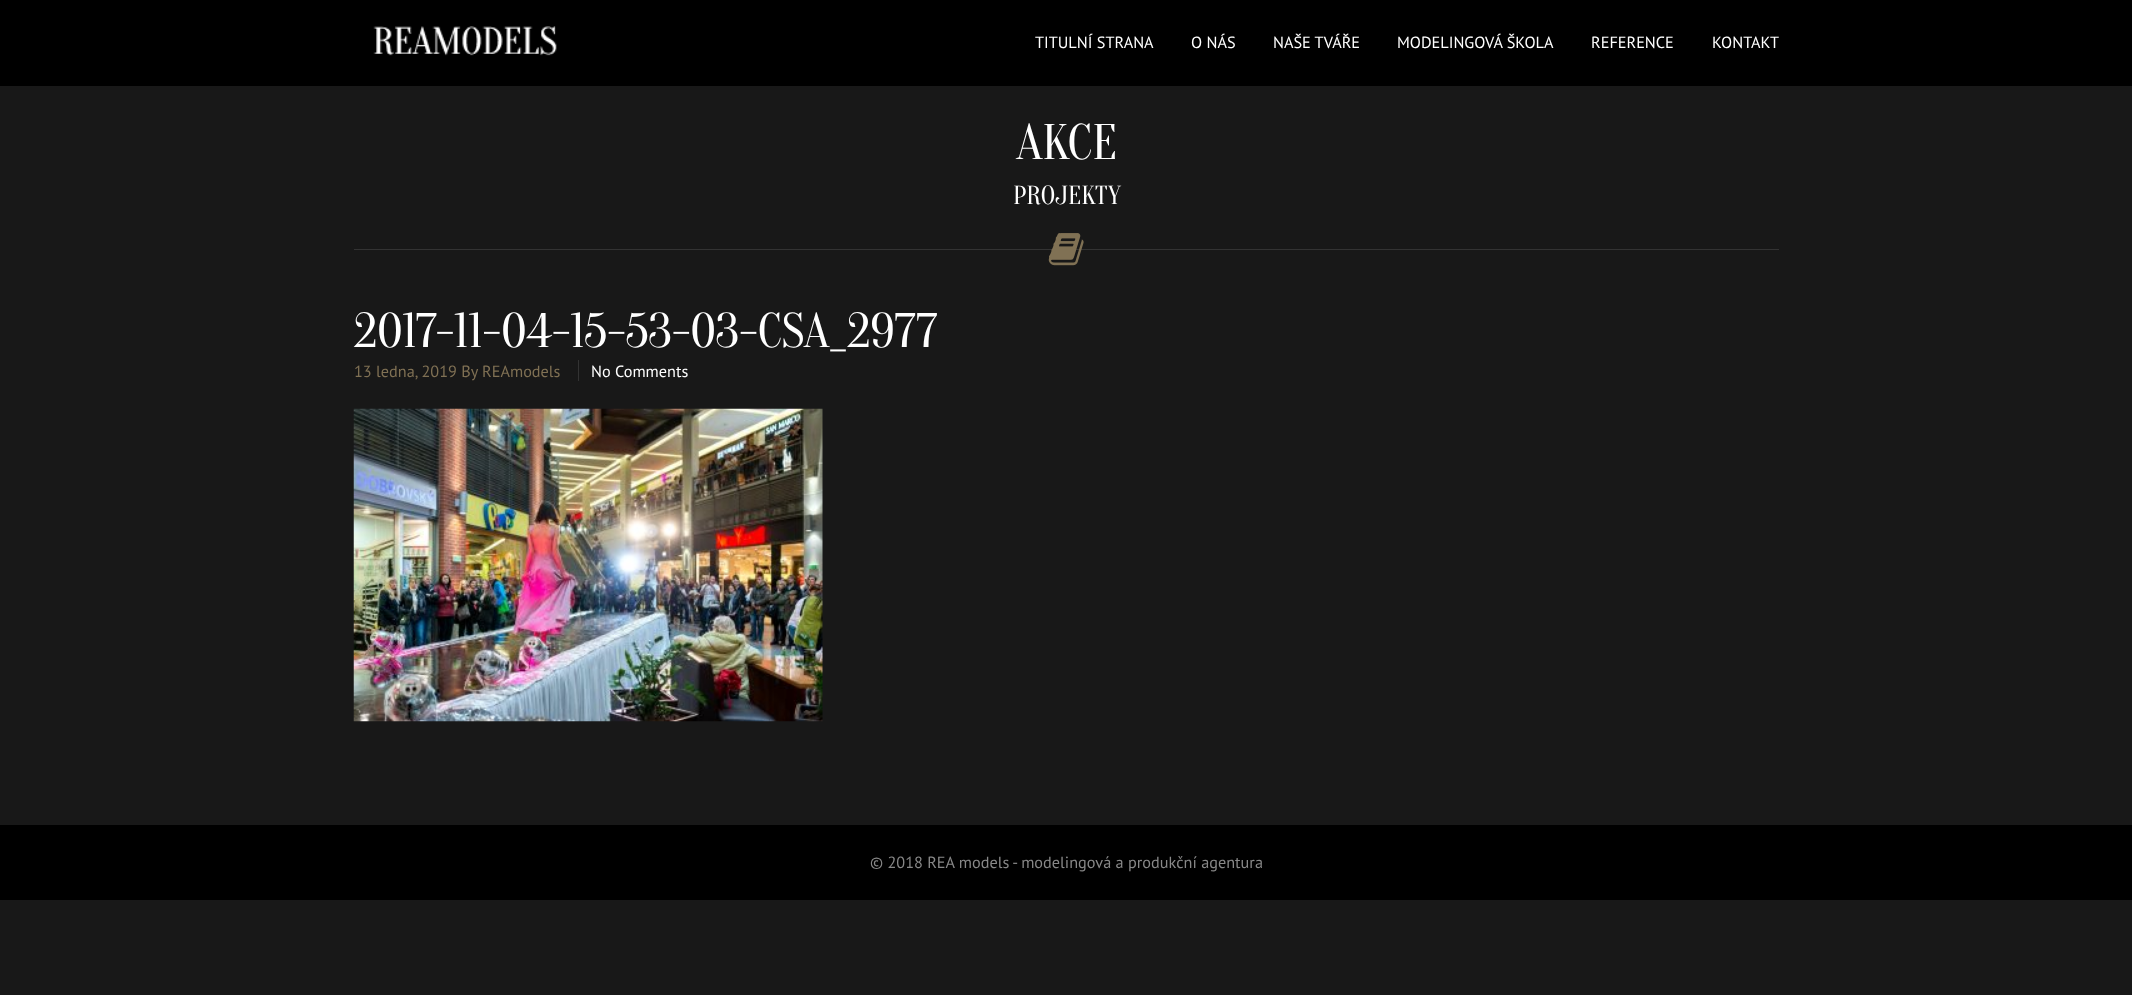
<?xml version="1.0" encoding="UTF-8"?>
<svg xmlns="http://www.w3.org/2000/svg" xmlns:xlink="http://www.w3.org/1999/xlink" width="2132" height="995">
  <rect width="100%" height="100%" fill="#181818" />
  <rect width="2132" height="86" fill="#000000" />
  <image x="373" y="26" width="184" height="30" xlink:href="image1.png" />
  <rect x="354" y="249" width="1425" height="1" fill="#333333" />
  <image x="1048" y="233" width="36" height="33" xlink:href="image2.png" />
  <rect x="578" y="360" width="1" height="21" fill="#333333" />
  <image x="353" y="408" width="470" height="314" xlink:href="image3.png" />
  <rect y="825" width="2132" height="75" fill="#000000" />
  <text x="1035" y="48" style="font-family: PT Sans; font-size: 16.25px; fill: #ffffff">TITULNÍ STRANA</text>
  <text x="1191" y="48" style="font-family: PT Sans; font-size: 16.25px; fill: #ffffff">O NÁS</text>
  <text x="1273" y="48" style="font-family: PT Sans; font-size: 16.25px; fill: #ffffff">NAŠE TVÁŘE</text>
  <text x="1397" y="48" style="font-family: PT Sans; font-size: 16.25px; fill: #ffffff">MODELINGOVÁ ŠKOLA</text>
  <text x="1591" y="48" style="font-family: PT Sans; font-size: 16.25px; fill: #ffffff">REFERENCE</text>
  <text x="1712" y="48" style="font-family: PT Sans; font-size: 16.25px; fill: #ffffff">KONTAKT</text>
  <text x="1016" y="159" style="font-family: Oranienbaum; font-size: 50px; fill: #ffffff">AKCE</text>
  <text x="1013" y="204" style="font-family: Oranienbaum; font-size: 26.25px; fill: #ffffff">PROJEKTY</text>
  <text x="354" y="347" style="font-family: Oranienbaum; font-size: 48.75px; fill: #ffffff">2017-11-04-15-53-03-CSA_2977</text>
  <text x="354" y="377" style="font-family: PT Sans; font-size: 16.25px; fill: #807154">13 ledna, 2019 By REAmodels</text>
  <text x="591" y="377" style="font-family: PT Sans; font-size: 16.25px; fill: #ffffff">No Comments</text>
  <text x="870" y="868" style="font-family: PT Sans; font-size: 16.25px; fill: #888888">© 2018 REA models - modelingová a produkční agentura</text>
</svg>
